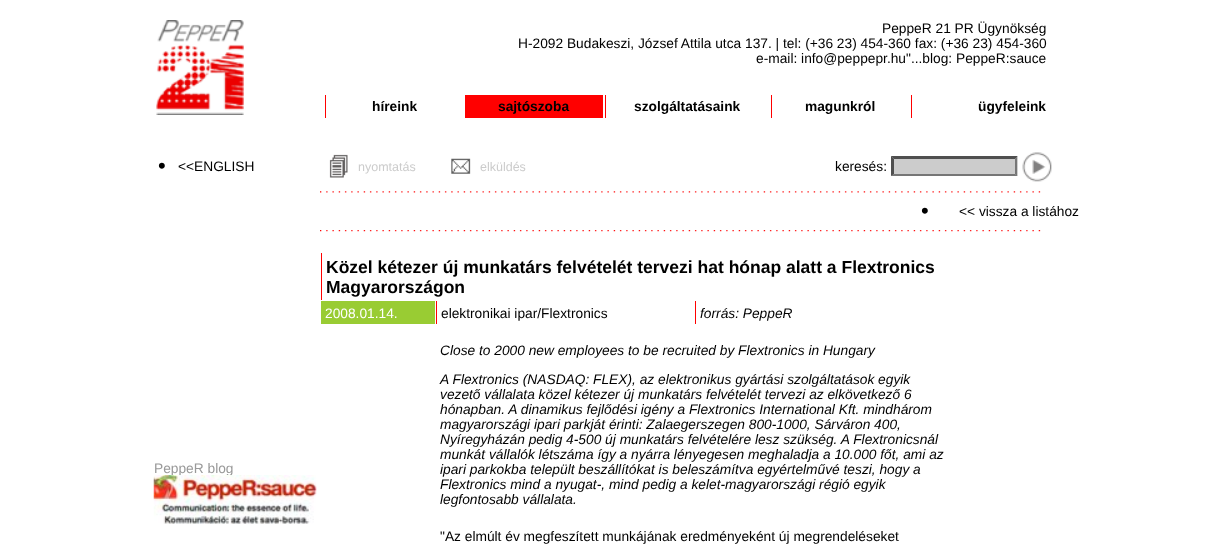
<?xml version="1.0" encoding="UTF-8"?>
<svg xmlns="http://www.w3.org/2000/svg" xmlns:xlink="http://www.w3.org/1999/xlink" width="1230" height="544">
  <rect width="100%" height="100%" fill="#ffffff" />
  <image x="156" y="20" width="88" height="95" xlink:href="image1.png" />
  <rect x="325" y="95" width="1" height="23" fill="#ff0000" />
  <rect x="465" y="95" width="138" height="23" fill="#ff0000" />
  <rect x="605" y="95" width="1" height="23" fill="#ff0000" />
  <rect x="771" y="95" width="1" height="23" fill="#ff0000" />
  <rect x="911" y="95" width="1" height="23" fill="#ff0000" />
  <image x="329" y="154" width="19" height="24" xlink:href="image2.png" />
  <image x="451" y="158" width="20" height="16" xlink:href="image3.png" />
  <rect x="891" y="156" width="127" height="20" fill="#cccccc" />
  <path d="M 891 156 h 127 l -3 3 h -121 z" fill="#4f4f4f" />
  <path d="M 1017.5 156 v 20 l -2.5 -2 v -15 z" fill="#767676" />
  <path d="M 1018 176 h -127 l 3 -2 h 121 z" fill="#767676" />
  <path d="M 891 176 v -20 l 3 3 v 15 z" fill="#4f4f4f" />
  <image x="1017" y="152" width="35" height="30" xlink:href="image4.png" />
  <image x="320" y="191" width="721" height="2" xlink:href="image6.png" />
  <image x="320" y="230" width="721" height="2" xlink:href="image7.png" />
  <rect x="321" y="253" width="1" height="47" fill="#ff0000" />
  <rect x="321" y="301" width="114" height="23" fill="#99cc33" />
  <rect x="436" y="301" width="1" height="23" fill="#ff0000" />
  <rect x="695" y="301" width="1" height="23" fill="#ff0000" />
  <text x="882" y="33" style="font-family: Liberation Sans; font-size: 13.75px; fill: #000000">PeppeR 21 PR Ügynökség</text>
  <text x="518" y="48" style="font-family: Liberation Sans; font-size: 13.75px; fill: #000000">H-2092 Budakeszi, József Attila utca 137. | tel: (+36 23) 454-360 fax: (+36 23) 454-360</text>
  <text x="756" y="63" style="font-family: Liberation Sans; font-size: 13.75px; fill: #000000">e-mail: info@peppepr.hu"...blog: PeppeR:sauce</text>
  <text x="372" y="111" style="font-family: Liberation Sans; font-size: 13.75px; font-weight: bold; fill: #000000">híreink</text>
  <text x="498" y="111" style="font-family: Liberation Sans; font-size: 13.75px; font-weight: bold; fill: #000000">sajtószoba</text>
  <text x="634" y="111" style="font-family: Liberation Sans; font-size: 13.75px; font-weight: bold; fill: #000000">szolgáltatásaink</text>
  <text x="805" y="111" style="font-family: Liberation Sans; font-size: 13.75px; font-weight: bold; fill: #000000">magunkról</text>
  <text x="978" y="111" style="font-family: Liberation Sans; font-size: 13.75px; font-weight: bold; fill: #000000">ügyfeleink</text>
  <text x="158" y="173" style="font-family: Liberation Sans; font-size: 22px; fill: #000000">•</text>
  <text x="178" y="171" style="font-family: Liberation Sans; font-size: 13.75px; fill: #000000">&lt;&lt;ENGLISH</text>
  <text x="358" y="171" style="font-family: Liberation Sans; font-size: 12.5px; fill: #cccccc">nyomtatás</text>
  <text x="480" y="171" style="font-family: Liberation Sans; font-size: 12.5px; fill: #cccccc">elküldés</text>
  <text x="835" y="171" style="font-family: Liberation Sans; font-size: 13.75px; fill: #000000">keresés:</text>
  <text x="154" y="473" style="font-family: Liberation Sans; font-size: 13.75px; fill: #999999">PeppeR blog</text>
  <image x="153" y="475" width="164" height="49" xlink:href="image5.png" />
  <text x="921" y="218" style="font-family: Liberation Sans; font-size: 22px; fill: #000000">•</text>
  <text x="959" y="216" style="font-family: Liberation Sans; font-size: 13.75px; fill: #000000">&lt;&lt; vissza a listához</text>
  <text x="326" y="273" style="font-family: Liberation Sans; font-size: 17.5px; font-weight: bold; fill: #000000">Közel kétezer új munkatárs felvételét tervezi hat hónap alatt a Flextronics</text>
  <text x="326" y="293" style="font-family: Liberation Sans; font-size: 17.5px; font-weight: bold; fill: #000000">Magyarországon</text>
  <text x="325" y="318" style="font-family: Liberation Sans; font-size: 13.75px; fill: #ffffff">2008.01.14.</text>
  <text x="441" y="318" style="font-family: Liberation Sans; font-size: 13.75px; fill: #000000">elektronikai ipar/Flextronics</text>
  <text x="700" y="318" style="font-family: Liberation Sans; font-size: 13.75px; font-style: italic; fill: #000000">forrás: PeppeR</text>
  <text x="440" y="355" style="font-family: Liberation Sans; font-size: 13.75px; font-style: italic; fill: #000000">Close to 2000 new employees to be recruited by Flextronics in Hungary</text>
  <text x="440" y="384" style="font-family: Liberation Sans; font-size: 13.75px; font-style: italic; fill: #000000">A Flextronics (NASDAQ: FLEX), az elektronikus gyártási szolgáltatások egyik</text>
  <text x="440" y="399" style="font-family: Liberation Sans; font-size: 13.75px; font-style: italic; fill: #000000">vezető vállalata közel kétezer új munkatárs felvételét tervezi az elkövetkező 6</text>
  <text x="440" y="414" style="font-family: Liberation Sans; font-size: 13.75px; font-style: italic; fill: #000000">hónapban. A dinamikus fejlődési igény a Flextronics International Kft. mindhárom</text>
  <text x="440" y="429" style="font-family: Liberation Sans; font-size: 13.75px; font-style: italic; fill: #000000">magyarországi ipari parkját érinti: Zalaegerszegen 800-1000, Sárváron 400,</text>
  <text x="440" y="444" style="font-family: Liberation Sans; font-size: 13.75px; font-style: italic; fill: #000000">Nyíregyházán pedig 4-500 új munkatárs felvételére lesz szükség. A Flextronicsnál</text>
  <text x="440" y="459" style="font-family: Liberation Sans; font-size: 13.75px; font-style: italic; fill: #000000">munkát vállalók létszáma így a nyárra lényegesen meghaladja a 10.000 főt, ami az</text>
  <text x="440" y="474" style="font-family: Liberation Sans; font-size: 13.75px; font-style: italic; fill: #000000">ipari parkokba települt beszállítókat is beleszámítva egyértelművé teszi, hogy a</text>
  <text x="440" y="489" style="font-family: Liberation Sans; font-size: 13.75px; font-style: italic; fill: #000000">Flextronics mind a nyugat-, mind pedig a kelet-magyarországi régió egyik</text>
  <text x="440" y="504" style="font-family: Liberation Sans; font-size: 13.75px; font-style: italic; fill: #000000">legfontosabb vállalata.</text>
  <text x="440" y="541" style="font-family: Liberation Sans; font-size: 13.75px; fill: #000000">"Az elmúlt év megfeszített munkájának eredményeként új megrendeléseket</text>
</svg>
